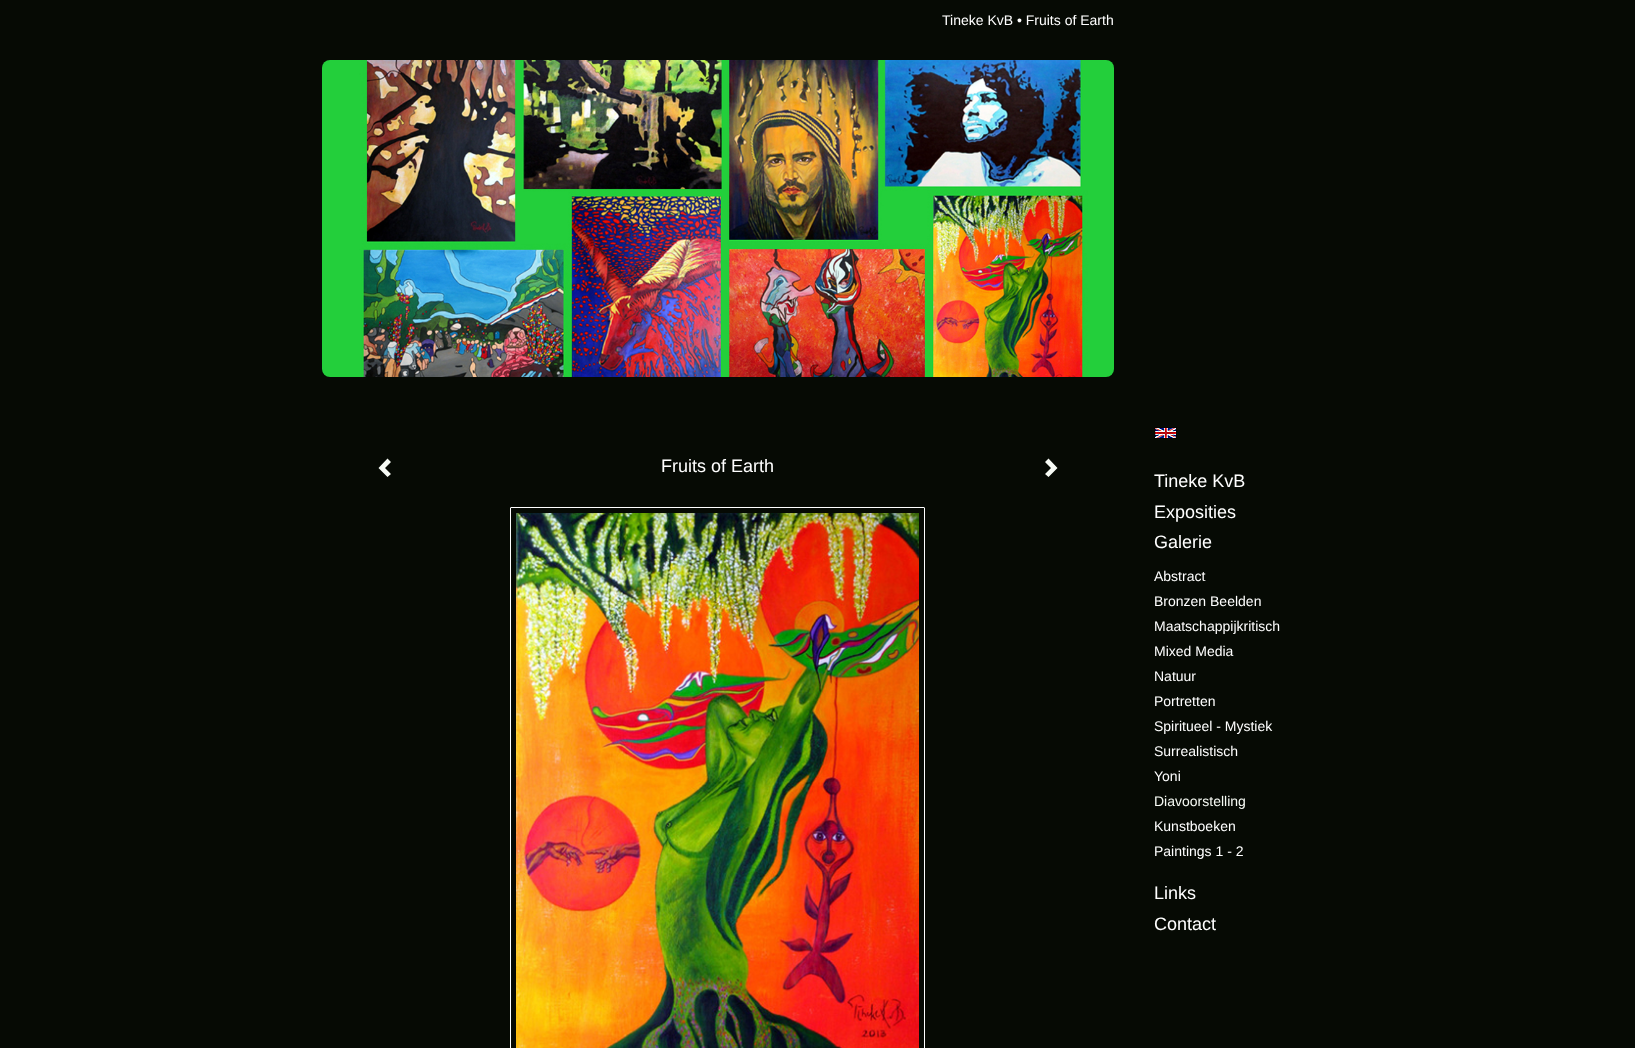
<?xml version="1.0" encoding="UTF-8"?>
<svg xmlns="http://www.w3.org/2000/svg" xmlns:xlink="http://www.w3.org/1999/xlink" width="1635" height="1048">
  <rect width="100%" height="100%" fill="#060a04" />
  <image x="322" y="60" width="792" height="317" xlink:href="image1.png" />
  <path d="M 391 462 l -6 6 l 6 6 l -3.5 3 l -9 -9 l 9 -9.5 z" fill="#f7fbf5" />
  <path d="M 1057.5 468 l -9 9 l -3.5 -3 l 6 -6 l -6 -6 l 3.5 -3.5 z" fill="#f7fbf5" />
  <rect x="510.5" y="507.5" width="414" height="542" rx="0.5" fill="none" stroke="#ffffff" />
  <image x="516" y="513" width="403" height="535" xlink:href="image2.png" />
  <image x="1154" y="427" width="23" height="12" xlink:href="image3.png" />
  <text x="942" y="25" style="font-family: Liberation Sans; font-size: 14px; fill: #ffffff">Tineke KvB • Fruits of Earth</text>
  <text x="661" y="472" style="font-family: Liberation Sans; font-size: 18px; fill: #ffffff">Fruits of Earth</text>
  <text x="1154" y="487" style="font-family: Liberation Sans; font-size: 18px; fill: #ffffff">Tineke KvB</text>
  <text x="1154" y="518" style="font-family: Liberation Sans; font-size: 18px; fill: #ffffff">Exposities</text>
  <text x="1154" y="548" style="font-family: Liberation Sans; font-size: 18px; fill: #ffffff">Galerie</text>
  <text x="1154" y="581" style="font-family: Liberation Sans; font-size: 14px; fill: #ffffff">Abstract</text>
  <text x="1154" y="606" style="font-family: Liberation Sans; font-size: 14px; fill: #ffffff">Bronzen Beelden</text>
  <text x="1154" y="631" style="font-family: Liberation Sans; font-size: 14px; fill: #ffffff">Maatschappijkritisch</text>
  <text x="1154" y="656" style="font-family: Liberation Sans; font-size: 14px; fill: #ffffff">Mixed Media</text>
  <text x="1154" y="681" style="font-family: Liberation Sans; font-size: 14px; fill: #ffffff">Natuur</text>
  <text x="1154" y="706" style="font-family: Liberation Sans; font-size: 14px; fill: #ffffff">Portretten</text>
  <text x="1154" y="731" style="font-family: Liberation Sans; font-size: 14px; fill: #ffffff">Spiritueel - Mystiek</text>
  <text x="1154" y="756" style="font-family: Liberation Sans; font-size: 14px; fill: #ffffff">Surrealistisch</text>
  <text x="1154" y="781" style="font-family: Liberation Sans; font-size: 14px; fill: #ffffff">Yoni</text>
  <text x="1154" y="806" style="font-family: Liberation Sans; font-size: 14px; fill: #f7fbf5">Diavoorstelling</text>
  <text x="1154" y="831" style="font-family: Liberation Sans; font-size: 14px; fill: #ffffff">Kunstboeken</text>
  <text x="1154" y="856" style="font-family: Liberation Sans; font-size: 14px; fill: #ffffff">Paintings 1 - 2</text>
  <text x="1154" y="899" style="font-family: Liberation Sans; font-size: 18px; fill: #ffffff">Links</text>
  <text x="1154" y="930" style="font-family: Liberation Sans; font-size: 18px; fill: #ffffff">Contact</text>
</svg>
